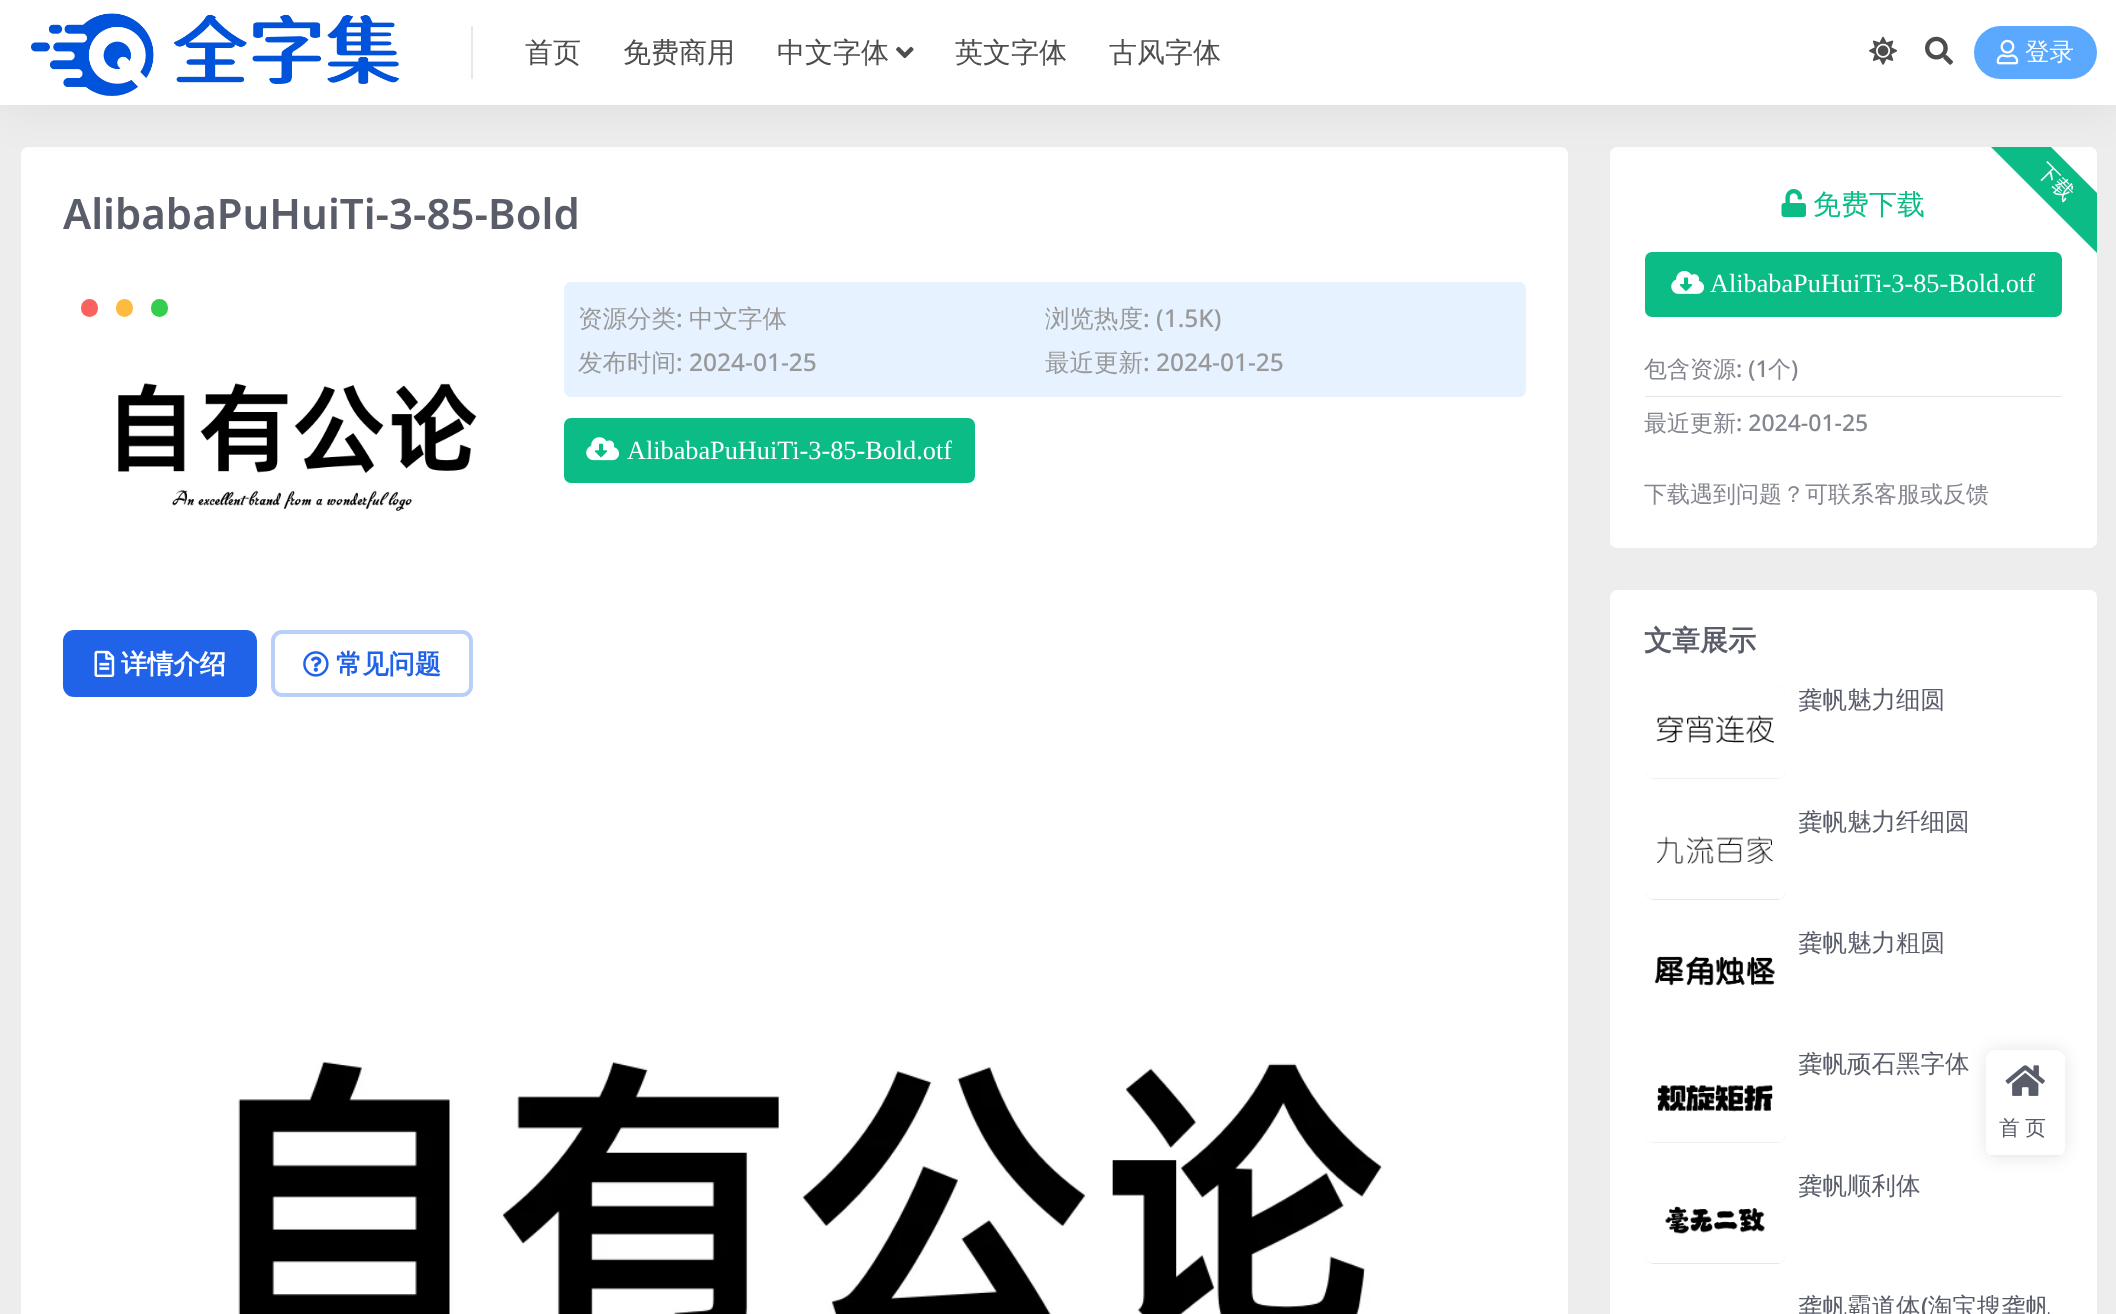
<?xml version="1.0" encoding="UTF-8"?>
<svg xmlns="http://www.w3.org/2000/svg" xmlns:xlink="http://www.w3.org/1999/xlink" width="2116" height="1314">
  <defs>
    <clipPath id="clip1"><rect x="1645" y="686" width="140" height="93" rx="7" /></clipPath>
    <clipPath id="clip2"><rect x="1645" y="807" width="140" height="93" rx="7" /></clipPath>
    <clipPath id="clip3"><rect x="1645" y="928" width="140" height="94" rx="7" /></clipPath>
    <clipPath id="clip4"><rect x="1645" y="1050" width="140" height="93" rx="7" /></clipPath>
    <clipPath id="clip5"><rect x="1645" y="1171" width="140" height="93" rx="7" /></clipPath>
    <clipPath id="clip6"><rect x="1986" y="1050" width="79" height="107" rx="9" /></clipPath>
  </defs>
  <rect width="100%" height="100%" fill="#ededed" />
  <rect x="21" y="147" width="1547" height="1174" rx="7" fill="#ffffff" />
  <rect x="1610" y="147" width="487" height="401" rx="7" fill="#ffffff" />
  <path d="M 2097 193 v 60 l -106 -106 h 60 z" fill="#0cbc87" />
  <rect width="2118" height="105" fill="#000000" fill-opacity="0.07" filter="blur(26px)" />
  <rect width="2116" height="105" fill="#ffffff" />
  <image x="31" y="13" width="369" height="83" xlink:href="image1.png" />
  <rect x="471" y="26" width="2" height="53" fill="#e8e8e9" />
  <image x="896" y="46" width="18" height="13" xlink:href="image2.png" />
  <image x="1869" y="36" width="28" height="29" xlink:href="image3.png" />
  <image x="1925" y="36" width="28" height="29" xlink:href="image4.png" />
  <rect x="1974" y="26" width="123" height="53" rx="26.5" fill="#5ba8ff" />
  <image x="1996" y="39" width="23" height="26" xlink:href="image5.png" />
  <rect x="151" y="299" width="17" height="18" rx="8.5" fill="#35cd4b" />
  <rect x="116" y="299" width="17" height="18" rx="8.5" fill="#fdbc40" />
  <rect x="81" y="299" width="17" height="18" rx="8.5" fill="#fc625d" />
  <image x="118" y="383" width="359" height="128" xlink:href="image6.png" />
  <rect x="564" y="282" width="962" height="115" rx="7" fill="#e6f2ff" />
  <rect x="565" y="419" width="409" height="63" rx="6" fill="#0cbc87" stroke="#0cbc87" stroke-width="2" />
  <image x="586" y="437" width="34" height="24" xlink:href="image7.png" />
  <rect x="63" y="630" width="194" height="67" rx="11" fill="#2163e8" />
  <image x="94" y="650" width="21" height="27" xlink:href="image8.png" />
  <rect x="273" y="632" width="198" height="63" rx="9" fill="none" stroke="#bacff8" stroke-width="4" />
  <image x="303" y="651" width="26" height="26" xlink:href="image9.png" />
  <image x="238" y="1060" width="1145" height="254" xlink:href="image10.png" />
  <image x="1781" y="189" width="25" height="28" xlink:href="image11.png" />
  <rect x="1646" y="253" width="415" height="63" rx="6" fill="#0cbc87" stroke="#0cbc87" stroke-width="2" />
  <image x="1671" y="270" width="34" height="24" xlink:href="image12.png" />
  <rect x="1645" y="396" width="417" height="1" fill="#e6e6e6" />
  <rect x="1610" y="590" width="487" height="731" rx="7" fill="#ffffff" />
  <g clip-path="url(#clip1)">
    <path d="M 1654 686 h 124 c 4 0 7 3 7 7 v 79 c 0 4 -3 7 -7 7 h -124 c -5 0 -9 -4 -9 -9 v -75 c 0 -5 4 -9 9 -9 z" fill="#e7e7e7" />
  </g>
  <image x="1645" y="686" width="140" height="93" xlink:href="image13.png" />
  <g clip-path="url(#clip2)">
    <path d="M 1654 807 h 124 c 4 0 7 3 7 7 v 79 c 0 4 -3 7 -7 7 h -124 c -5 0 -9 -4 -9 -9 v -75 c 0 -5 4 -9 9 -9 z" fill="#e7e7e7" />
  </g>
  <image x="1645" y="807" width="140" height="92" xlink:href="image14.png" />
  <g clip-path="url(#clip3)">
    <path d="M 1654 928 h 124 c 4 0 7 3 7 7 v 80 c 0 4 -3 7 -7 7 h -124 c -5 0 -9 -4 -9 -9 v -76 c 0 -5 4 -9 9 -9 z" fill="#e7e7e7" />
  </g>
  <image x="1645" y="928" width="140" height="94" xlink:href="image15.png" />
  <g clip-path="url(#clip4)">
    <path d="M 1654 1050 h 124 c 4 0 7 3 7 7 v 79 c 0 4 -3 7 -7 7 h -124 c -5 0 -9 -4 -9 -9 v -75 c 0 -5 4 -9 9 -9 z" fill="#e7e7e7" />
  </g>
  <image x="1645" y="1050" width="140" height="93" xlink:href="image16.png" />
  <g clip-path="url(#clip5)">
    <path d="M 1654 1171 h 124 c 4 0 7 3 7 7 v 79 c 0 4 -3 7 -7 7 h -124 c -5 0 -9 -4 -9 -9 v -75 c 0 -5 4 -9 9 -9 z" fill="#e7e7e7" />
  </g>
  <image x="1645" y="1171" width="140" height="92" xlink:href="image17.png" />
  <image x="1645" y="1292" width="140" height="22" xlink:href="image18.png" />
  <rect x="1986" y="1050" width="79" height="107" rx="9" fill="#000000" fill-opacity="0.1" filter="blur(9px)" />
  <rect x="1986" y="1050" width="79" height="107" rx="9" fill="#ffffff" />
  <g clip-path="url(#clip6)">
    <rect x="1986" y="1155" width="79" height="2" fill="#eeeeee" />
  </g>
  <image x="2005" y="1065" width="40" height="31" xlink:href="image19.png" />
  <text x="525" y="62" style="font-family: WenQuanYi Zen Hei; font-size: 28px; font-weight: 500; fill: #4d4d4d">首页</text>
  <text x="623" y="62" style="font-family: WenQuanYi Zen Hei; font-size: 28px; font-weight: 500; fill: #4d4d4d">免费商用</text>
  <text x="777" y="62" style="font-family: WenQuanYi Zen Hei; font-size: 28px; font-weight: 500; fill: #4d4d4d">中文字体</text>
  <text x="955" y="62" style="font-family: WenQuanYi Zen Hei; font-size: 28px; font-weight: 500; fill: #4d4d4d">英文字体</text>
  <text x="1109" y="62" style="font-family: WenQuanYi Zen Hei; font-size: 28px; font-weight: 500; fill: #4d4d4d">古风字体</text>
  <text x="2025" y="60" style="font-family: WenQuanYi Zen Hei; font-size: 24.5px; font-weight: 500; fill: #ffffff">登录</text>
  <text x="63" y="229" style="font-family: Noto Sans; font-size: 42px; font-weight: 600; fill: #595d69">AlibabaPuHuiTi-3-85-Bold</text>
  <text x="578" y="327" style="font-family: WenQuanYi Zen Hei; font-size: 24.5px; font-weight: 500; fill: #999999">资源分类</text>
  <text x="676" y="327" style="font-family: Noto Sans; font-size: 24.5px; font-weight: 500; fill: #999999">:</text>
  <text x="689" y="327" style="font-family: WenQuanYi Zen Hei; font-size: 24.5px; font-weight: 500; fill: #999999">中文字体</text>
  <text x="1045" y="327" style="font-family: WenQuanYi Zen Hei; font-size: 24.5px; font-weight: 500; fill: #999999">浏览热度</text>
  <text x="1143" y="327" style="font-family: Noto Sans; font-size: 24.5px; font-weight: 500; fill: #999999">: (1.5K)</text>
  <text x="578" y="371" style="font-family: WenQuanYi Zen Hei; font-size: 24.5px; font-weight: 500; fill: #999999">发布时间</text>
  <text x="676" y="371" style="font-family: Noto Sans; font-size: 24.5px; font-weight: 500; fill: #999999">: 2024-01-25</text>
  <text x="1045" y="371" style="font-family: WenQuanYi Zen Hei; font-size: 24.5px; font-weight: 500; fill: #999999">最近更新</text>
  <text x="1143" y="371" style="font-family: Noto Sans; font-size: 24.5px; font-weight: 500; fill: #999999">: 2024-01-25</text>
  <text x="627" y="459" style="font-family: Liberation Serif; font-size: 26.25px; fill: #ffffff">AlibabaPuHuiTi-3-85-Bold.otf</text>
  <text x="121" y="673" style="font-family: WenQuanYi Zen Hei; font-size: 26.25px; font-weight: bold; fill: #ffffff">详情介绍</text>
  <text x="336" y="673" style="font-family: WenQuanYi Zen Hei; font-size: 26.25px; font-weight: bold; fill: #2163e8">常见问题</text>
  <text x="2036" y="172" transform="rotate(45 2036 172)" style="font-family: WenQuanYi Zen Hei; font-size: 21px; font-weight: 500; fill: #ffffff">下载</text>
  <text x="1813" y="214" style="font-family: WenQuanYi Zen Hei; font-size: 28px; font-weight: 500; fill: #0cbc87">免费下载</text>
  <text x="1710" y="292" style="font-family: Liberation Serif; font-size: 26.25px; fill: #ffffff">AlibabaPuHuiTi-3-85-Bold.otf</text>
  <text x="1644" y="377" style="font-family: WenQuanYi Zen Hei; font-size: 23px; font-weight: 500; fill: #83868f">包含资源</text>
  <text x="1736" y="377" style="font-family: Noto Sans; font-size: 23px; font-weight: 500; fill: #83868f">: (1</text>
  <text x="1768" y="377" style="font-family: WenQuanYi Zen Hei; font-size: 23px; font-weight: 500; fill: #83868f">个</text>
  <text x="1791" y="377" style="font-family: Noto Sans; font-size: 23px; font-weight: 500; fill: #83868f">)</text>
  <text x="1644" y="431" style="font-family: WenQuanYi Zen Hei; font-size: 23px; font-weight: 500; fill: #83868f">最近更新</text>
  <text x="1736" y="431" style="font-family: Noto Sans; font-size: 23px; font-weight: 500; fill: #83868f">: 2024-01-25</text>
  <text x="1644" y="502" style="font-family: WenQuanYi Zen Hei; font-size: 23px; font-weight: 500; fill: #83868f">下载遇到问题？可联系客服或反馈</text>
  <text x="1644" y="650" style="font-family: WenQuanYi Zen Hei; font-size: 28px; font-weight: bold; fill: #595d69">文章展示</text>
  <text x="1798" y="708" style="font-family: WenQuanYi Zen Hei; font-size: 24.5px; font-weight: 500; fill: #595d69">龚帆魅力细圆</text>
  <text x="1798" y="830" style="font-family: WenQuanYi Zen Hei; font-size: 24.5px; font-weight: 500; fill: #595d69">龚帆魅力纤细圆</text>
  <text x="1798" y="951" style="font-family: WenQuanYi Zen Hei; font-size: 24.5px; font-weight: 500; fill: #595d69">龚帆魅力粗圆</text>
  <text x="1798" y="1072" style="font-family: WenQuanYi Zen Hei; font-size: 24.5px; font-weight: 500; fill: #595d69">龚帆顽石黑字体</text>
  <text x="1798" y="1194" style="font-family: WenQuanYi Zen Hei; font-size: 24.5px; font-weight: 500; fill: #595d69">龚帆顺利体</text>
  <text x="1798" y="1315" style="font-family: WenQuanYi Zen Hei; font-size: 24.5px; font-weight: 500; fill: #595d69">龚帆霸道体 淘宝搜龚帆</text>
  <text x="1921" y="1315" style="font-family: Noto Sans; font-size: 24.5px; font-weight: 500; fill: #595d69">(</text>
  <text x="1999" y="1135" style="font-family: WenQuanYi Zen Hei; font-size: 21px; font-weight: 500; letter-spacing: 5px; fill: #595d69">首页</text>
</svg>
